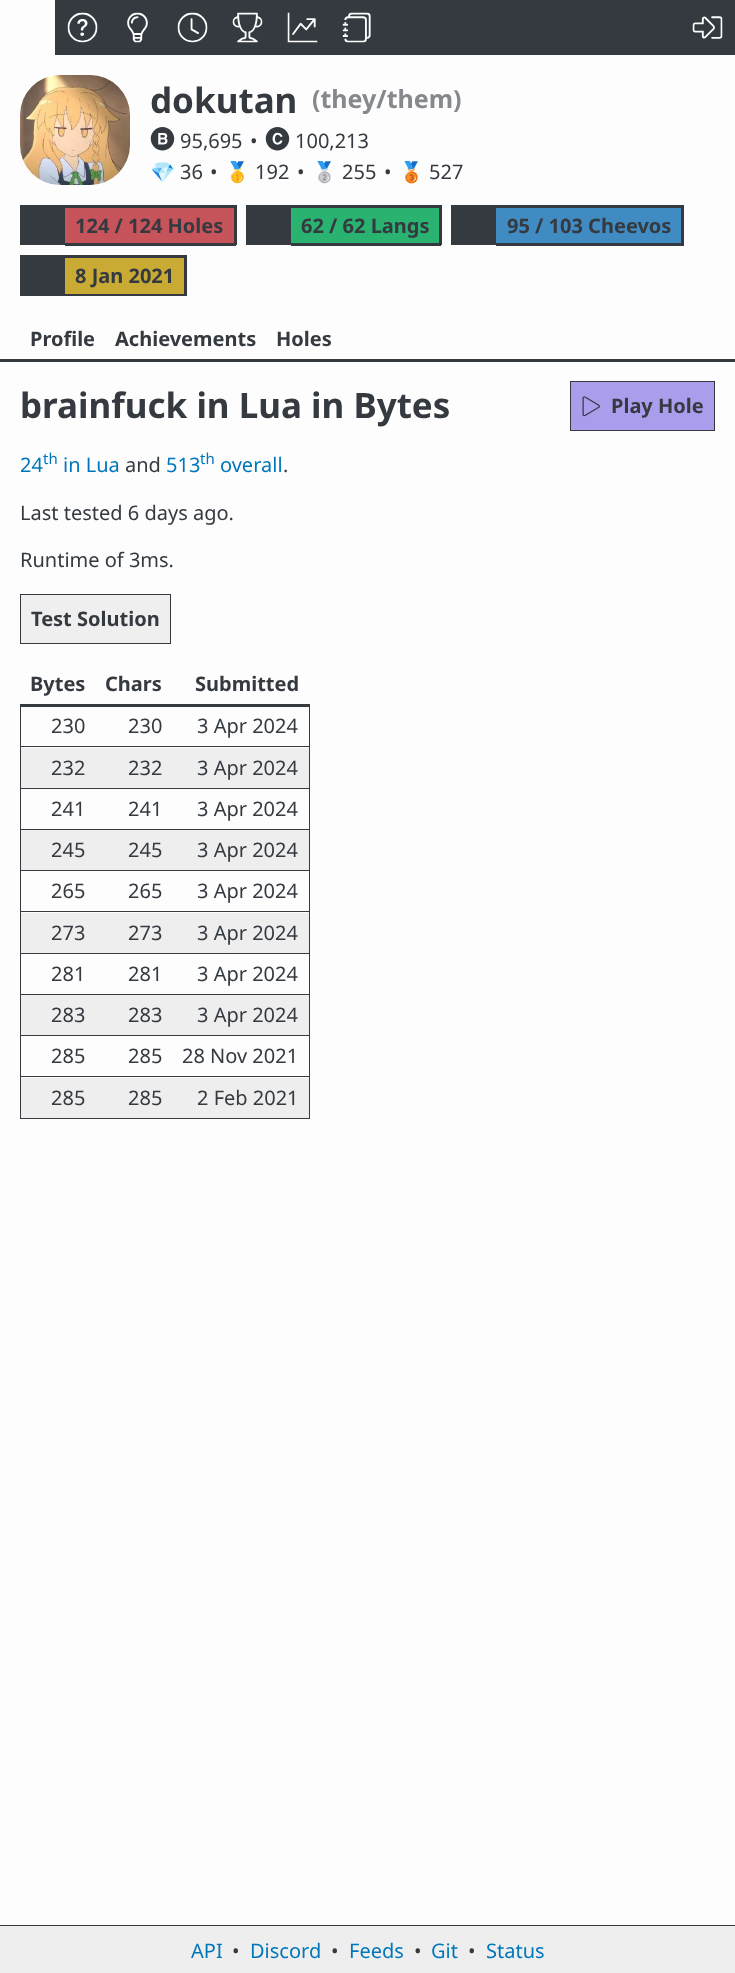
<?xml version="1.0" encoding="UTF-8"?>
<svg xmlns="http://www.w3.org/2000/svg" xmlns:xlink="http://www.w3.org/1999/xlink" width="735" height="1973">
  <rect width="100%" height="100%" fill="#fdfdfd" />
  <rect x="55" width="680" height="55" fill="#343a40" />
  <image x="67" y="12" width="31" height="31" xlink:href="image1.png" />
  <image x="127" y="12" width="21" height="31" xlink:href="image2.png" />
  <image x="177" y="12" width="31" height="31" xlink:href="image3.png" />
  <image x="232" y="12" width="31" height="31" xlink:href="image4.png" />
  <image x="287" y="12" width="31" height="31" xlink:href="image5.png" />
  <image x="342" y="12" width="29" height="31" xlink:href="image6.png" />
  <image x="692" y="16" width="31" height="23" xlink:href="image7.png" />
  <image x="20" y="75" width="110" height="110" xlink:href="image8.png" />
  <image x="150" y="127" width="25" height="24" xlink:href="image9.png" />
  <image x="265" y="127" width="25" height="24" xlink:href="image10.png" />
  <rect x="20" y="205" width="45" height="40" fill="#343a40" />
  <rect x="65" y="208" width="169" height="35" fill="#c7535b" />
  <rect x="65" y="205" width="171" height="3" fill="#343a40" />
  <rect x="234" y="205" width="3" height="40" fill="#343a40" />
  <rect x="65" y="243" width="171" height="3" fill="#343a40" />
  <rect x="246" y="205" width="45" height="40" fill="#343a40" />
  <rect x="291" y="208" width="148" height="35" fill="#2ab270" />
  <rect x="291" y="205" width="150" height="3" fill="#343a40" />
  <rect x="439" y="205" width="3" height="40" fill="#343a40" />
  <rect x="291" y="243" width="150" height="3" fill="#343a40" />
  <rect x="451" y="205" width="45" height="40" fill="#343a40" />
  <rect x="496" y="208" width="185" height="35" fill="#408cc2" />
  <rect x="496" y="205" width="188" height="3" fill="#343a40" />
  <rect x="681" y="205" width="3" height="40" fill="#343a40" />
  <rect x="496" y="243" width="188" height="3" fill="#343a40" />
  <rect x="20" y="255" width="45" height="41" fill="#343a40" />
  <rect x="65" y="258" width="119" height="36" fill="#c8aa34" />
  <rect x="65" y="255" width="121" height="3" fill="#343a40" />
  <rect x="184" y="255" width="3" height="41" fill="#343a40" />
  <rect x="65" y="294" width="121" height="2" fill="#343a40" />
  <rect y="359" width="735" height="3" fill="#343a40" />
  <rect x="570.5" y="381.5" width="144" height="49" fill="#aa9dec" stroke="#343a40" />
  <image x="582" y="396" width="18" height="21" xlink:href="image11.png" />
  <rect x="20.5" y="594.5" width="150" height="49" fill="#efefef" stroke="#343a40" />
  <rect x="20" y="704" width="290" height="3" fill="#343a40" />
  <rect x="20" y="746" width="153" height="1" fill="#343a40" />
  <rect x="20" y="706" width="1" height="42" fill="#343a40" />
  <rect x="309" y="706" width="1" height="413" fill="#343a40" />
  <rect x="173" y="746" width="137" height="1" fill="#343a40" />
  <rect x="21" y="748" width="288" height="40" fill="#eeeeee" />
  <rect x="20" y="788" width="290" height="1" fill="#343a40" />
  <rect x="20" y="748" width="1" height="41" fill="#343a40" />
  <rect x="20" y="829" width="290" height="1" fill="#343a40" />
  <rect x="20" y="789" width="1" height="41" fill="#343a40" />
  <rect x="21" y="830" width="288" height="40" fill="#eeeeee" />
  <rect x="20" y="870" width="290" height="1" fill="#343a40" />
  <rect x="20" y="830" width="1" height="41" fill="#343a40" />
  <rect x="20" y="911" width="290" height="1" fill="#343a40" />
  <rect x="20" y="871" width="1" height="42" fill="#343a40" />
  <rect x="21" y="913" width="288" height="40" fill="#eeeeee" />
  <rect x="20" y="953" width="290" height="1" fill="#343a40" />
  <rect x="20" y="913" width="1" height="41" fill="#343a40" />
  <rect x="20" y="994" width="290" height="1" fill="#343a40" />
  <rect x="20" y="954" width="1" height="41" fill="#343a40" />
  <rect x="21" y="995" width="288" height="40" fill="#eeeeee" />
  <rect x="20" y="1035" width="290" height="1" fill="#343a40" />
  <rect x="20" y="995" width="1" height="41" fill="#343a40" />
  <rect x="20" y="1076" width="290" height="1" fill="#343a40" />
  <rect x="20" y="1036" width="1" height="42" fill="#343a40" />
  <rect x="21" y="1078" width="288" height="40" fill="#eeeeee" />
  <rect x="20" y="1118" width="290" height="1" fill="#343a40" />
  <rect x="20" y="1078" width="1" height="41" fill="#343a40" />
  <rect y="1926" width="735" height="47" fill="#eeeeee" />
  <rect y="1925" width="735" height="1" fill="#343a40" />
  <text x="150" y="113" style="font-family: Noto Sans; font-size: 35px; font-weight: bold; fill: #343a40">dokutan</text>
  <text x="312" y="108" style="font-family: Noto Sans; font-size: 25px; font-weight: bold; fill: #85888c">(they/them)</text>
  <text x="180" y="148" style="font-family: Noto Sans; font-size: 20px; fill: #343a40">95,695</text>
  <text x="250" y="148" style="font-family: Noto Sans; font-size: 20px; fill: #343a40">•</text>
  <text x="295" y="148" style="font-family: Noto Sans; font-size: 20px; fill: #343a40">100,213</text>
  <text x="150" y="179" style="font-family: Noto Color Emoji; font-size: 20px; fill: #343a40">💎</text>
  <text x="180" y="179" style="font-family: Noto Sans; font-size: 20px; fill: #343a40">36</text>
  <text x="210" y="179" style="font-family: Noto Sans; font-size: 20px; fill: #343a40">•</text>
  <text x="225" y="179" style="font-family: Noto Color Emoji; font-size: 20px; fill: #343a40">🥇</text>
  <text x="255" y="179" style="font-family: Noto Sans; font-size: 20px; fill: #343a40">192</text>
  <text x="297" y="179" style="font-family: Noto Sans; font-size: 20px; fill: #343a40">•</text>
  <text x="312" y="179" style="font-family: Noto Color Emoji; font-size: 20px; fill: #343a40">🥈</text>
  <text x="342" y="179" style="font-family: Noto Sans; font-size: 20px; fill: #343a40">255</text>
  <text x="384" y="179" style="font-family: Noto Sans; font-size: 20px; fill: #343a40">•</text>
  <text x="399" y="179" style="font-family: Noto Color Emoji; font-size: 20px; fill: #343a40">🥉</text>
  <text x="429" y="179" style="font-family: Noto Sans; font-size: 20px; fill: #343a40">527</text>
  <text x="75" y="233" style="font-family: Noto Sans; font-size: 20px; font-weight: bold; fill: #343a40">124 / 124 Holes</text>
  <text x="301" y="233" style="font-family: Noto Sans; font-size: 20px; font-weight: bold; fill: #343a40">62 / 62 Langs</text>
  <text x="507" y="233" style="font-family: Noto Sans; font-size: 20px; font-weight: bold; fill: #343a40">95 / 103 Cheevos</text>
  <text x="75" y="283" style="font-family: Noto Sans; font-size: 20px; font-weight: bold; fill: #343a40">8 Jan 2021</text>
  <text x="30" y="346" style="font-family: Noto Sans; font-size: 20px; font-weight: bold; fill: #343a40">Profile</text>
  <text x="115" y="346" style="font-family: Noto Sans; font-size: 20px; font-weight: bold; fill: #343a40">Achievements</text>
  <text x="276" y="346" style="font-family: Noto Sans; font-size: 20px; font-weight: bold; fill: #343a40">Holes</text>
  <text x="20" y="418" style="font-family: Noto Sans; font-size: 35px; font-weight: bold; fill: #343a40">brainfuck in Lua in Bytes</text>
  <text x="611" y="413" style="font-family: Noto Sans; font-size: 20px; font-weight: bold; fill: #343a40">Play Hole</text>
  <text x="20" y="472" style="font-family: Noto Sans; font-size: 20px; fill: #0077bb">24</text>
  <text x="43" y="464" style="font-family: Noto Sans; font-size: 15px; fill: #0077bb">th</text>
  <text x="63" y="472" style="font-family: Noto Sans; font-size: 20px; fill: #0077bb">in Lua</text>
  <text x="125" y="472" style="font-family: Noto Sans; font-size: 20px; fill: #343a40">and</text>
  <text x="166" y="472" style="font-family: Noto Sans; font-size: 20px; fill: #0077bb">513</text>
  <text x="200" y="464" style="font-family: Noto Sans; font-size: 15px; fill: #0077bb">th</text>
  <text x="220" y="472" style="font-family: Noto Sans; font-size: 20px; fill: #0077bb">overall</text>
  <text x="283" y="472" style="font-family: Noto Sans; font-size: 20px; fill: #343a40">.</text>
  <text x="20" y="520" style="font-family: Noto Sans; font-size: 20px; fill: #343a40">Last tested 6 days ago.</text>
  <text x="20" y="567" style="font-family: Noto Sans; font-size: 20px; fill: #343a40">Runtime of 3ms.</text>
  <text x="31" y="626" style="font-family: Noto Sans; font-size: 20px; font-weight: bold; fill: #343a40">Test Solution</text>
  <text x="30" y="691" style="font-family: Noto Sans; font-size: 20px; font-weight: bold; fill: #343a40">Bytes</text>
  <text x="105" y="691" style="font-family: Noto Sans; font-size: 20px; font-weight: bold; fill: #343a40">Chars</text>
  <text x="195" y="691" style="font-family: Noto Sans; font-size: 20px; font-weight: bold; fill: #343a40">Submitted</text>
  <text x="51" y="733" style="font-family: Noto Sans; font-size: 20px; fill: #343a40">230</text>
  <text x="128" y="733" style="font-family: Noto Sans; font-size: 20px; fill: #343a40">230</text>
  <text x="197" y="733" style="font-family: Noto Sans; font-size: 20px; fill: #343a40">3 Apr 2024</text>
  <text x="51" y="775" style="font-family: Noto Sans; font-size: 20px; fill: #343a40">232</text>
  <text x="128" y="775" style="font-family: Noto Sans; font-size: 20px; fill: #343a40">232</text>
  <text x="197" y="775" style="font-family: Noto Sans; font-size: 20px; fill: #343a40">3 Apr 2024</text>
  <text x="51" y="816" style="font-family: Noto Sans; font-size: 20px; fill: #343a40">241</text>
  <text x="128" y="816" style="font-family: Noto Sans; font-size: 20px; fill: #343a40">241</text>
  <text x="197" y="816" style="font-family: Noto Sans; font-size: 20px; fill: #343a40">3 Apr 2024</text>
  <text x="51" y="857" style="font-family: Noto Sans; font-size: 20px; fill: #343a40">245</text>
  <text x="128" y="857" style="font-family: Noto Sans; font-size: 20px; fill: #343a40">245</text>
  <text x="197" y="857" style="font-family: Noto Sans; font-size: 20px; fill: #343a40">3 Apr 2024</text>
  <text x="51" y="898" style="font-family: Noto Sans; font-size: 20px; fill: #343a40">265</text>
  <text x="128" y="898" style="font-family: Noto Sans; font-size: 20px; fill: #343a40">265</text>
  <text x="197" y="898" style="font-family: Noto Sans; font-size: 20px; fill: #343a40">3 Apr 2024</text>
  <text x="51" y="940" style="font-family: Noto Sans; font-size: 20px; fill: #343a40">273</text>
  <text x="128" y="940" style="font-family: Noto Sans; font-size: 20px; fill: #343a40">273</text>
  <text x="197" y="940" style="font-family: Noto Sans; font-size: 20px; fill: #343a40">3 Apr 2024</text>
  <text x="51" y="981" style="font-family: Noto Sans; font-size: 20px; fill: #343a40">281</text>
  <text x="128" y="981" style="font-family: Noto Sans; font-size: 20px; fill: #343a40">281</text>
  <text x="197" y="981" style="font-family: Noto Sans; font-size: 20px; fill: #343a40">3 Apr 2024</text>
  <text x="51" y="1022" style="font-family: Noto Sans; font-size: 20px; fill: #343a40">283</text>
  <text x="128" y="1022" style="font-family: Noto Sans; font-size: 20px; fill: #343a40">283</text>
  <text x="197" y="1022" style="font-family: Noto Sans; font-size: 20px; fill: #343a40">3 Apr 2024</text>
  <text x="51" y="1063" style="font-family: Noto Sans; font-size: 20px; fill: #343a40">285</text>
  <text x="128" y="1063" style="font-family: Noto Sans; font-size: 20px; fill: #343a40">285</text>
  <text x="182" y="1063" style="font-family: Noto Sans; font-size: 20px; fill: #343a40">28 Nov 2021</text>
  <text x="51" y="1105" style="font-family: Noto Sans; font-size: 20px; fill: #343a40">285</text>
  <text x="128" y="1105" style="font-family: Noto Sans; font-size: 20px; fill: #343a40">285</text>
  <text x="197" y="1105" style="font-family: Noto Sans; font-size: 20px; fill: #343a40">2 Feb 2021</text>
  <text x="191" y="1958" style="font-family: Noto Sans; font-size: 20px; fill: #0077bb">API</text>
  <text x="232" y="1958" style="font-family: Noto Sans; font-size: 20px; fill: #343a40">•</text>
  <text x="250" y="1958" style="font-family: Noto Sans; font-size: 20px; fill: #0077bb">Discord</text>
  <text x="331" y="1958" style="font-family: Noto Sans; font-size: 20px; fill: #343a40">•</text>
  <text x="349" y="1958" style="font-family: Noto Sans; font-size: 20px; fill: #0077bb">Feeds</text>
  <text x="414" y="1958" style="font-family: Noto Sans; font-size: 20px; fill: #343a40">•</text>
  <text x="431" y="1958" style="font-family: Noto Sans; font-size: 20px; fill: #0077bb">Git</text>
  <text x="468" y="1958" style="font-family: Noto Sans; font-size: 20px; fill: #343a40">•</text>
  <text x="486" y="1958" style="font-family: Noto Sans; font-size: 20px; fill: #0077bb">Status</text>
</svg>
